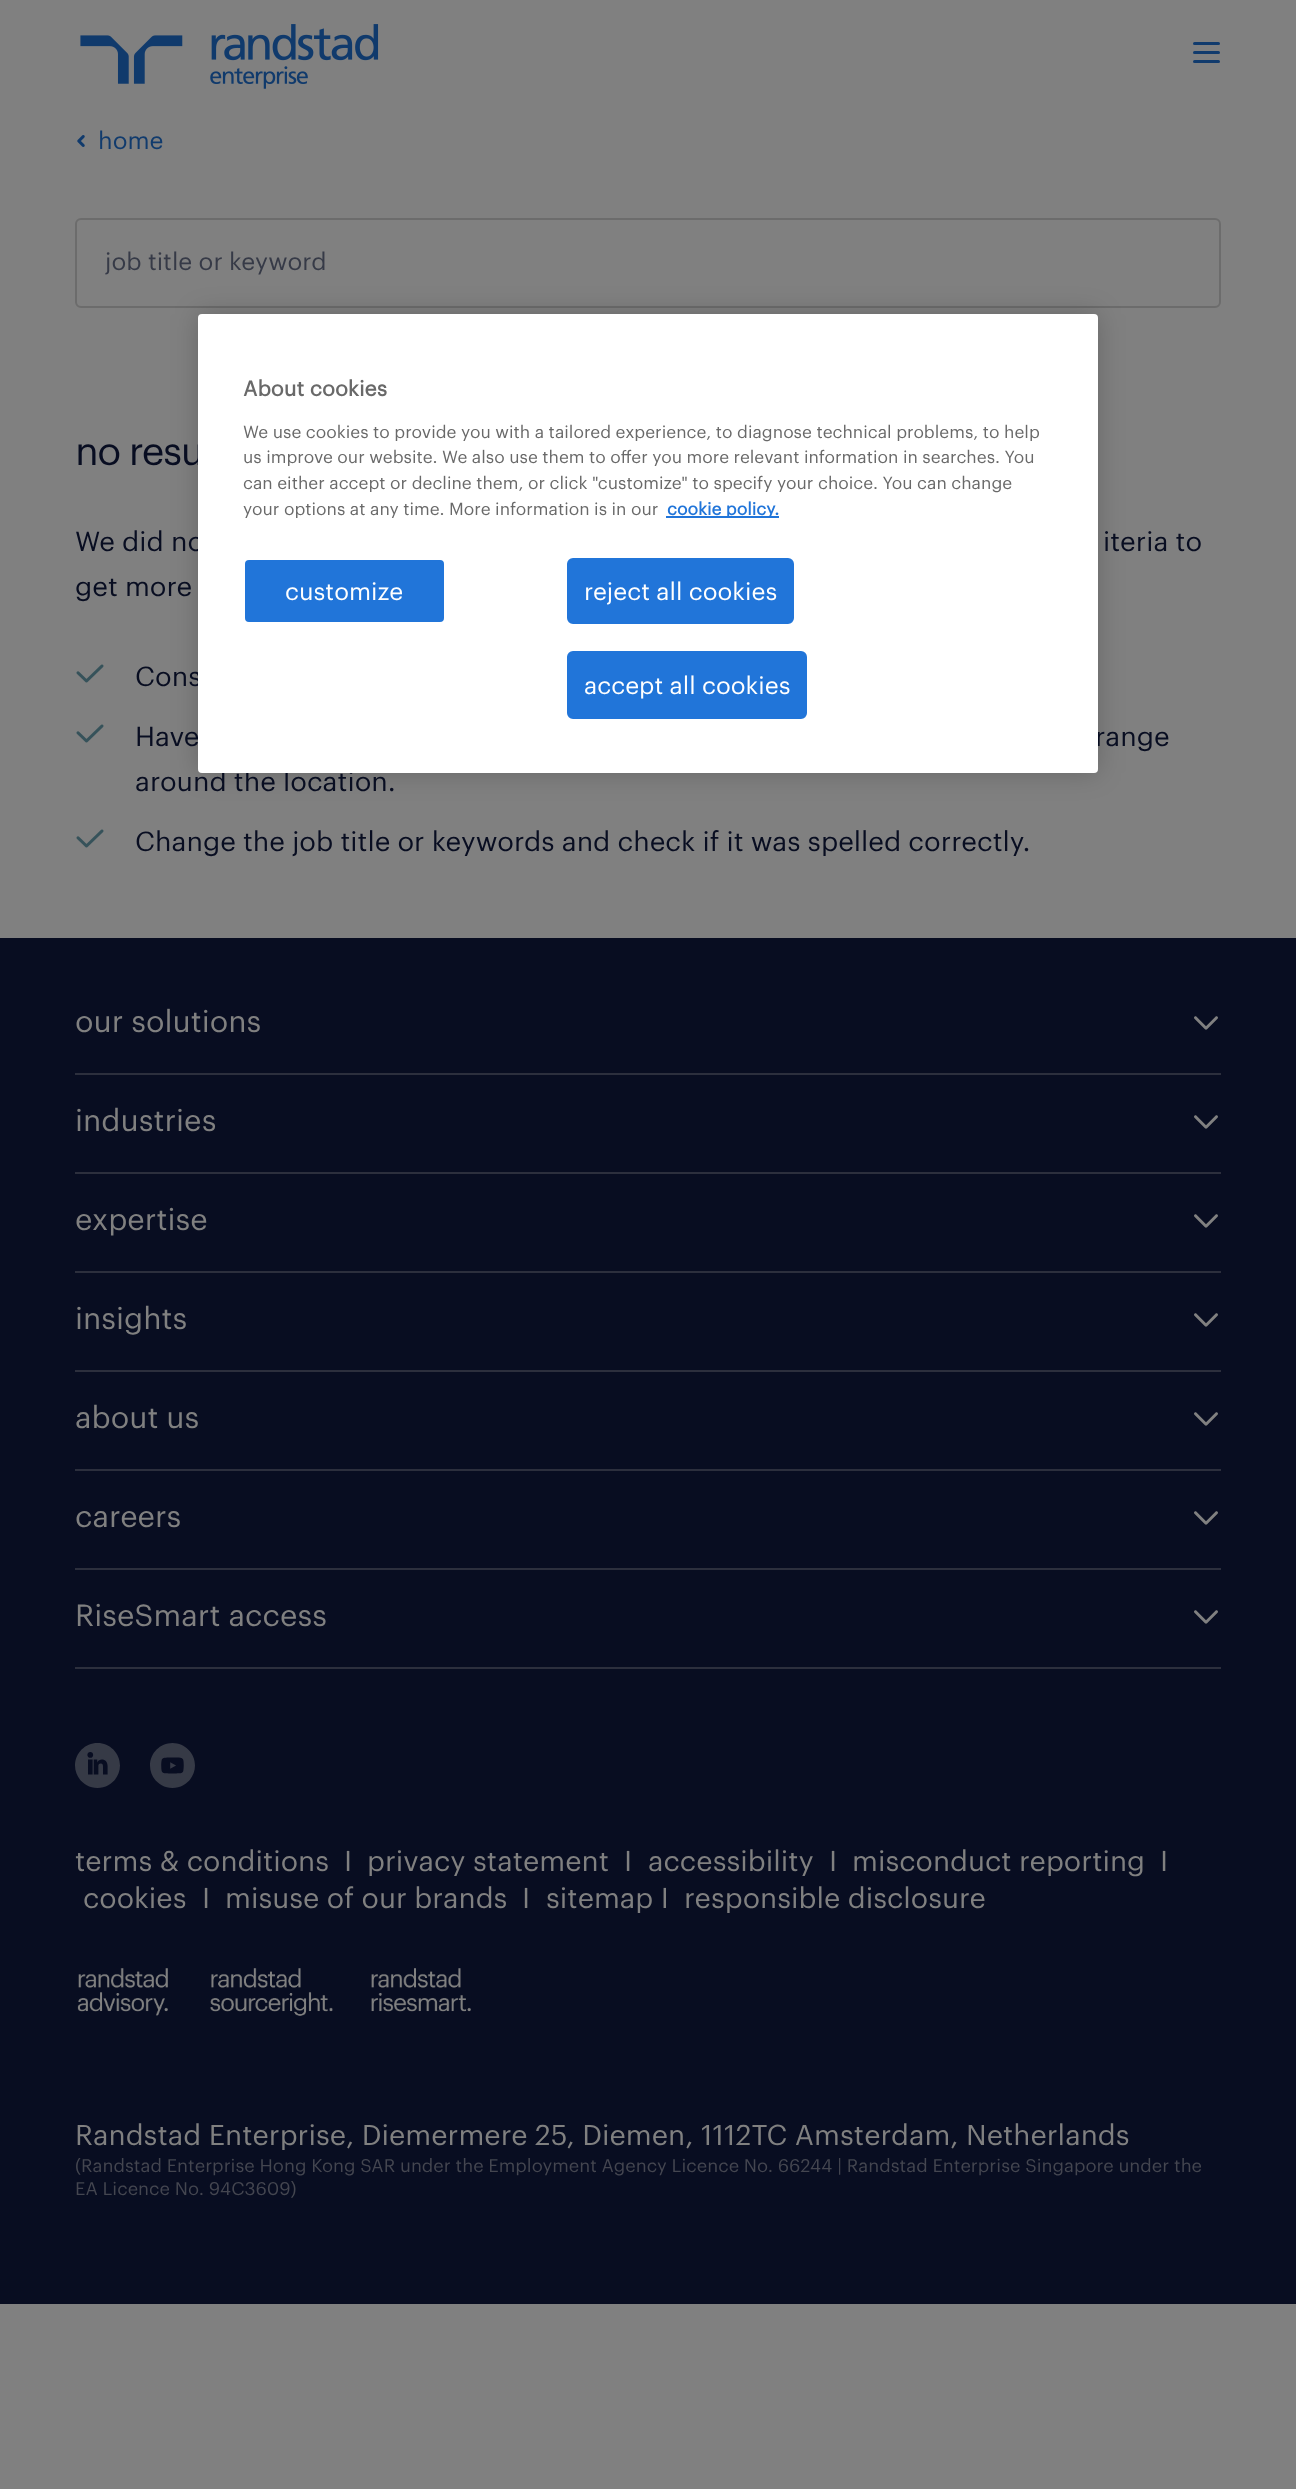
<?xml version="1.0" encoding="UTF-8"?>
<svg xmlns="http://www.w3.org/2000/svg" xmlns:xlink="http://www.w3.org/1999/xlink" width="1296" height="2489">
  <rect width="100%" height="100%" fill="#808080" />
  <image x="80" y="24" width="299" height="65" xlink:href="image1.png" />
  <rect x="1193" y="51" width="27" height="3" rx="1.5" fill="#113b6d" />
  <rect x="1193" y="42" width="27" height="3" rx="1.5" fill="#113b6d" />
  <rect x="1193" y="60" width="27" height="3" rx="1.5" fill="#113b6d" />
  <image x="77" y="135" width="8" height="12" xlink:href="image2.png" />
  <rect x="76" y="219" width="1144" height="88" rx="5" fill="none" stroke="#6c6c6c" stroke-width="2" />
  <image x="76" y="664" width="28" height="19" xlink:href="image3.png" />
  <image x="76" y="724" width="28" height="19" xlink:href="image3.png" />
  <image x="76" y="829" width="28" height="19" xlink:href="image3.png" />
  <rect x="198" y="314" width="900" height="459" rx="4" fill="#000000" fill-opacity="0.2" filter="blur(13.5px)" />
  <rect y="938" width="1296" height="1366" fill="#080d21" />
  <rect x="75" y="1073" width="1146" height="2" fill="#2c2f3d" />
  <image x="1194" y="1016" width="24" height="14" xlink:href="image4.png" />
  <rect x="75" y="1172" width="1146" height="2" fill="#2c2f3d" />
  <image x="1194" y="1115" width="24" height="14" xlink:href="image5.png" />
  <rect x="75" y="1271" width="1146" height="2" fill="#2c2f3d" />
  <image x="1194" y="1214" width="24" height="14" xlink:href="image5.png" />
  <rect x="75" y="1370" width="1146" height="2" fill="#2c2f3d" />
  <image x="1194" y="1313" width="24" height="14" xlink:href="image5.png" />
  <rect x="75" y="1469" width="1146" height="2" fill="#2c2f3d" />
  <image x="1194" y="1412" width="24" height="14" xlink:href="image5.png" />
  <rect x="75" y="1568" width="1146" height="2" fill="#2c2f3d" />
  <image x="1194" y="1511" width="24" height="14" xlink:href="image5.png" />
  <rect x="75" y="1667" width="1146" height="2" fill="#2c2f3d" />
  <image x="1194" y="1610" width="24" height="14" xlink:href="image5.png" />
  <image x="75" y="1743" width="45" height="45" xlink:href="image6.png" />
  <image x="150" y="1743" width="45" height="45" xlink:href="image7.png" />
  <image x="77" y="1968" width="394" height="48" xlink:href="image8.png" />
  <text x="98" y="149" style="font-family: Graphik; font-size: 24px; fill: #113b6d">home</text>
  <text x="105" y="270" style="font-family: Graphik; font-size: 24px; fill: #363a47">job title or keyword</text>
  <text x="75" y="465" style="font-family: Graphik; font-size: 39px; letter-spacing: -1.5px; fill: #080d21">no resu</text>
  <text x="75" y="551" style="font-family: Graphik; font-size: 27px; fill: #080d21">We did no</text>
  <text x="1103" y="551" style="font-family: Graphik; font-size: 27px; fill: #080d21">iteria to</text>
  <text x="75" y="596" style="font-family: Graphik; font-size: 27px; fill: #080d21">get more</text>
  <text x="135" y="686" style="font-family: Graphik; font-size: 27px; fill: #080d21">Cons</text>
  <text x="135" y="746" style="font-family: Graphik; font-size: 27px; fill: #080d21">Have</text>
  <text x="1095" y="746" style="font-family: Graphik; font-size: 27px; fill: #080d21">range</text>
  <text x="135" y="791" style="font-family: Graphik; font-size: 27px; fill: #080d21">around the location.</text>
  <text x="135" y="851" style="font-family: Graphik; font-size: 27px; fill: #080d21">Change the job title or keywords and check if it was spelled correctly.</text>
  <rect x="198" y="314" width="900" height="459" rx="4" fill="#ffffff" />
  <text x="243" y="396" style="font-family: Graphik; font-size: 21px; font-weight: bold; fill: #696969">About cookies</text>
  <text x="243" y="438" style="font-family: Graphik; font-size: 17.05px; fill: #696969">We use cookies to provide you with a tailored experience, to diagnose technical problems, to help</text>
  <text x="243" y="463" style="font-family: Graphik; font-size: 17.05px; fill: #696969">us improve our website. We also use them to offer you more relevant information in searches. You</text>
  <text x="243" y="489" style="font-family: Graphik; font-size: 17.05px; fill: #696969">can either accept or decline them, or click "customize" to specify your choice. You can change</text>
  <text x="243" y="515" style="font-family: Graphik; font-size: 17.05px; fill: #696969">your options at any time. More information is in our</text>
  <rect x="666" y="516" width="113" height="2" fill="#2175d9" />
  <text x="667" y="515" style="font-family: Graphik; font-size: 17.05px; font-weight: bold; fill: #2175d9">cookie policy.</text>
  <rect x="244" y="559" width="201" height="64" rx="5" fill="#2175d9" stroke="#ffffff" stroke-width="2" />
  <text x="285" y="600" style="font-family: Graphik; font-size: 24px; fill: #ffffff">customize</text>
  <rect x="568" y="559" width="225" height="64" rx="5" fill="#2175d9" stroke="#2175d9" stroke-width="2" />
  <text x="584" y="600" style="font-family: Graphik; font-size: 24px; fill: #ffffff">reject all cookies</text>
  <rect x="568" y="652" width="238" height="66" rx="5" fill="#2175d9" stroke="#2175d9" stroke-width="2" />
  <text x="584" y="694" style="font-family: Graphik; font-size: 24px; fill: #ffffff">accept all cookies</text>
  <text x="75" y="1032" style="font-family: Graphik; font-size: 30px; fill: #808080">our solutions</text>
  <text x="75" y="1131" style="font-family: Graphik; font-size: 30px; fill: #808080">industries</text>
  <text x="75" y="1230" style="font-family: Graphik; font-size: 30px; fill: #808080">expertise</text>
  <text x="75" y="1329" style="font-family: Graphik; font-size: 30px; fill: #808080">insights</text>
  <text x="75" y="1428" style="font-family: Graphik; font-size: 30px; fill: #808080">about us</text>
  <text x="75" y="1527" style="font-family: Graphik; font-size: 30px; fill: #808080">careers</text>
  <text x="75" y="1626" style="font-family: Graphik; font-size: 30px; fill: #808080">RiseSmart access</text>
  <text x="75" y="1871" style="font-family: Graphik; font-size: 28.1px; fill: #808080">terms &amp; conditions</text>
  <text x="344" y="1871" style="font-family: Graphik; font-size: 28.1px; fill: #808080">I</text>
  <text x="367" y="1871" style="font-family: Graphik; font-size: 28.1px; fill: #808080">privacy statement</text>
  <text x="624" y="1871" style="font-family: Graphik; font-size: 28.1px; fill: #808080">I</text>
  <text x="648" y="1871" style="font-family: Graphik; font-size: 28.1px; fill: #808080">accessibility</text>
  <text x="829" y="1871" style="font-family: Graphik; font-size: 28.1px; fill: #808080">I</text>
  <text x="852" y="1871" style="font-family: Graphik; font-size: 28.1px; fill: #808080">misconduct reporting</text>
  <text x="1160" y="1871" style="font-family: Graphik; font-size: 28.1px; fill: #808080">I</text>
  <text x="83" y="1908" style="font-family: Graphik; font-size: 28.1px; fill: #808080">cookies</text>
  <text x="202" y="1908" style="font-family: Graphik; font-size: 28.1px; fill: #808080">I</text>
  <text x="225" y="1908" style="font-family: Graphik; font-size: 28.1px; fill: #808080">misuse of our brands</text>
  <text x="522" y="1908" style="font-family: Graphik; font-size: 28.1px; fill: #808080">I</text>
  <text x="546" y="1908" style="font-family: Graphik; font-size: 28.1px; fill: #808080">sitemap I</text>
  <text x="684" y="1908" style="font-family: Graphik; font-size: 28.1px; fill: #808080">responsible disclosure</text>
  <text x="75" y="2145" style="font-family: Graphik; font-size: 28.1px; fill: #808080">Randstad Enterprise, Diemermere 25, Diemen, 1112TC Amsterdam, Netherlands</text>
  <text x="75" y="2172" style="font-family: Graphik; font-size: 18px; fill: #444650">(Randstad Enterprise Hong Kong SAR under the Employment Agency Licence No. 66244 | Randstad Enterprise Singapore under the</text>
  <text x="75" y="2195" style="font-family: Graphik; font-size: 18px; fill: #444650">EA Licence No. 94C3609)</text>
</svg>
